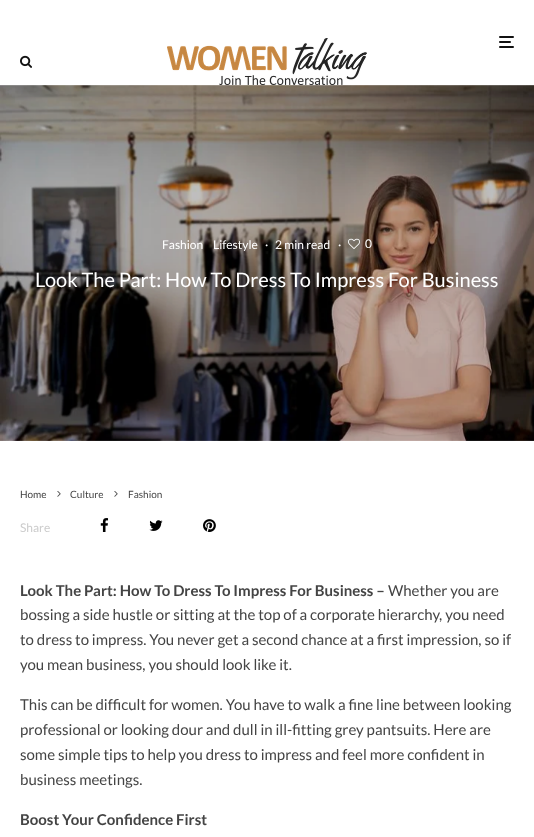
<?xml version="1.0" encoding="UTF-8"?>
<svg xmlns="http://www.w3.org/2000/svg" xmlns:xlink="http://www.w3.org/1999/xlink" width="534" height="837">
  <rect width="100%" height="100%" fill="#ffffff" />
  <image x="20" y="55" width="12" height="13" xlink:href="image1.png" />
  <image x="167" y="38" width="200" height="47" xlink:href="image2.png" />
  <rect x="499" y="41" width="12" height="2" rx="1" fill="#111111" />
  <rect x="499" y="36" width="15" height="2" rx="1" fill="#111111" />
  <rect x="499" y="46" width="15" height="2" rx="1" fill="#111111" />
  <image x="0" y="85" width="534" height="356" xlink:href="image3.png" />
  <image x="348" y="238" width="12" height="11" xlink:href="image4.png" />
  <image x="57" y="491" width="4" height="6" xlink:href="image5.png" />
  <image x="114" y="491" width="4" height="6" xlink:href="image5.png" />
  <image x="100" y="518" width="9" height="14" xlink:href="image6.png" />
  <image x="149" y="520" width="14" height="11" xlink:href="image7.png" />
  <image x="203" y="519" width="13" height="13" xlink:href="image8.png" />
  <text x="162" y="249" style="font-family: Lato; font-size: 12px; fill: #ffffff">Fashion</text>
  <text x="213" y="249" style="font-family: Lato; font-size: 12px; fill: #ffffff">Lifestyle</text>
  <text x="265" y="249" style="font-family: Lato; font-size: 12px; fill: #ffffff">·</text>
  <text x="275" y="249" style="font-family: Lato; font-size: 12px; fill: #ffffff">2 min read</text>
  <text x="338" y="249" style="font-family: Lato; font-size: 12px; fill: #ffffff">·</text>
  <text x="365" y="248" style="font-family: Lato; font-size: 12px; fill: #ffffff">0</text>
  <text x="35" y="287" style="font-family: Lato; font-size: 20px; fill: #ffffff">Look The Part: How To Dress To Impress For Business</text>
  <text x="20" y="498" style="font-family: Lato; font-size: 10px; fill: #444444">Home</text>
  <text x="70" y="498" style="font-family: Lato; font-size: 10px; fill: #444444">Culture</text>
  <text x="128" y="498" style="font-family: Lato; font-size: 10px; fill: #444444">Fashion</text>
  <text x="20" y="532" style="font-family: Lato; font-size: 12px; fill: #cccccc">Share</text>
  <text x="20" y="596" style="font-family: Lato; font-size: 15px; font-weight: bold; fill: #444444">Look The Part: How To Dress To Impress For Business –</text>
  <text x="388" y="596" style="font-family: Lato; font-size: 15px; fill: #444444">Whether you are</text>
  <text x="20" y="620" style="font-family: Lato; font-size: 15px; fill: #444444">bossing a side hustle or sitting at the top of a corporate hierarchy, you need</text>
  <text x="20" y="645" style="font-family: Lato; font-size: 15px; fill: #444444">to dress to impress. You never get a second chance at a first impression, so if</text>
  <text x="20" y="670" style="font-family: Lato; font-size: 15px; fill: #444444">you mean business, you should look like it.</text>
  <text x="20" y="710" style="font-family: Lato; font-size: 15px; fill: #444444">This can be difficult for women. You have to walk a fine line between looking</text>
  <text x="20" y="735" style="font-family: Lato; font-size: 15px; fill: #444444">professional or looking dour and dull in ill-fitting grey pantsuits. Here are</text>
  <text x="20" y="760" style="font-family: Lato; font-size: 15px; fill: #444444">some simple tips to help you dress to impress and feel more confident in</text>
  <text x="20" y="785" style="font-family: Lato; font-size: 15px; fill: #444444">business meetings.</text>
  <text x="20" y="825" style="font-family: Lato; font-size: 15px; font-weight: bold; fill: #444444">Boost Your Confidence First</text>
</svg>
